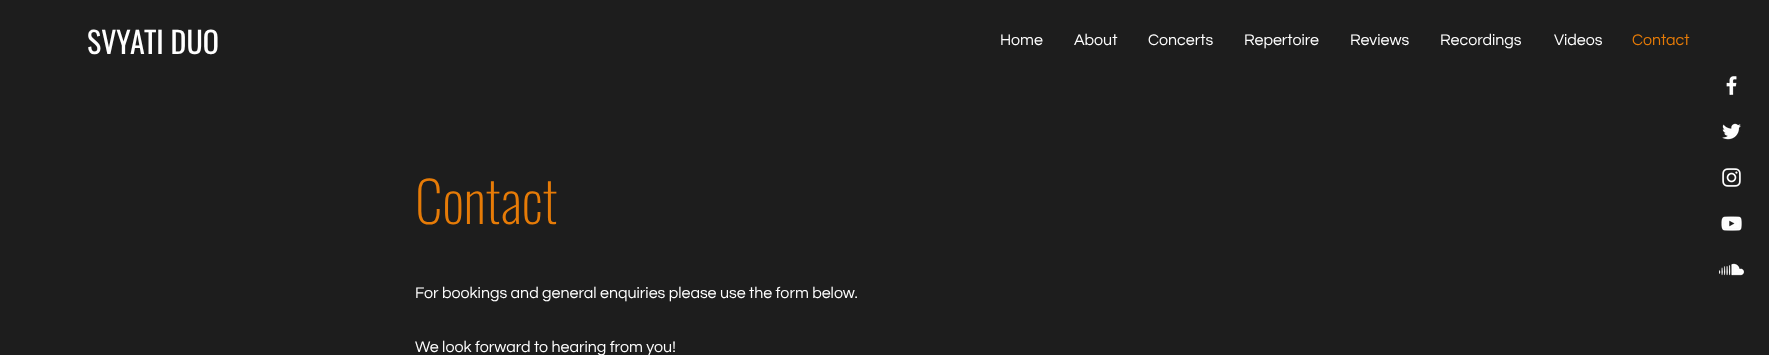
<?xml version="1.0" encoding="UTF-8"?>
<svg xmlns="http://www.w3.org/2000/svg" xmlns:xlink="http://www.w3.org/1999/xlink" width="1769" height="355">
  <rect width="100%" height="100%" fill="#1d1d1d" />
  <image x="1726" y="76" width="11" height="19" xlink:href="image1.png" />
  <image x="1722" y="123" width="19" height="17" xlink:href="image2.png" />
  <image x="1722" y="168" width="19" height="19" xlink:href="image3.png" />
  <image x="1721" y="216" width="21" height="15" xlink:href="image4.png" />
  <image x="1719" y="263" width="25" height="13" xlink:href="image5.png" />
  <text x="87" y="54" style="font-family: Oswald; font-size: 30px; fill: #ffffff">SVYATI DUO</text>
  <text x="1000" y="45" style="font-family: Questrial; font-size: 16px; fill: #ffffff">Home</text>
  <text x="1074" y="45" style="font-family: Questrial; font-size: 16px; fill: #ffffff">About</text>
  <text x="1148" y="45" style="font-family: Questrial; font-size: 16px; fill: #ffffff">Concerts</text>
  <text x="1244" y="45" style="font-family: Questrial; font-size: 16px; fill: #ffffff">Repertoire</text>
  <text x="1350" y="45" style="font-family: Questrial; font-size: 16px; fill: #ffffff">Reviews</text>
  <text x="1440" y="45" style="font-family: Questrial; font-size: 16px; fill: #ffffff">Recordings</text>
  <text x="1554" y="45" style="font-family: Questrial; font-size: 16px; fill: #ffffff">Videos</text>
  <text x="1632" y="45" style="font-family: Questrial; font-size: 16px; fill: #e67b07">Contact</text>
  <text x="415" y="224" style="font-family: Oswald; font-size: 56px; font-weight: 200; fill: #e67b07">Contact</text>
  <text x="415" y="298" style="font-family: Questrial; font-size: 16px; fill: #ffffff">For bookings and general enquiries please use the form below.</text>
  <text x="415" y="352" style="font-family: Questrial; font-size: 16px; fill: #ffffff">We look forward to hearing from you!</text>
</svg>
